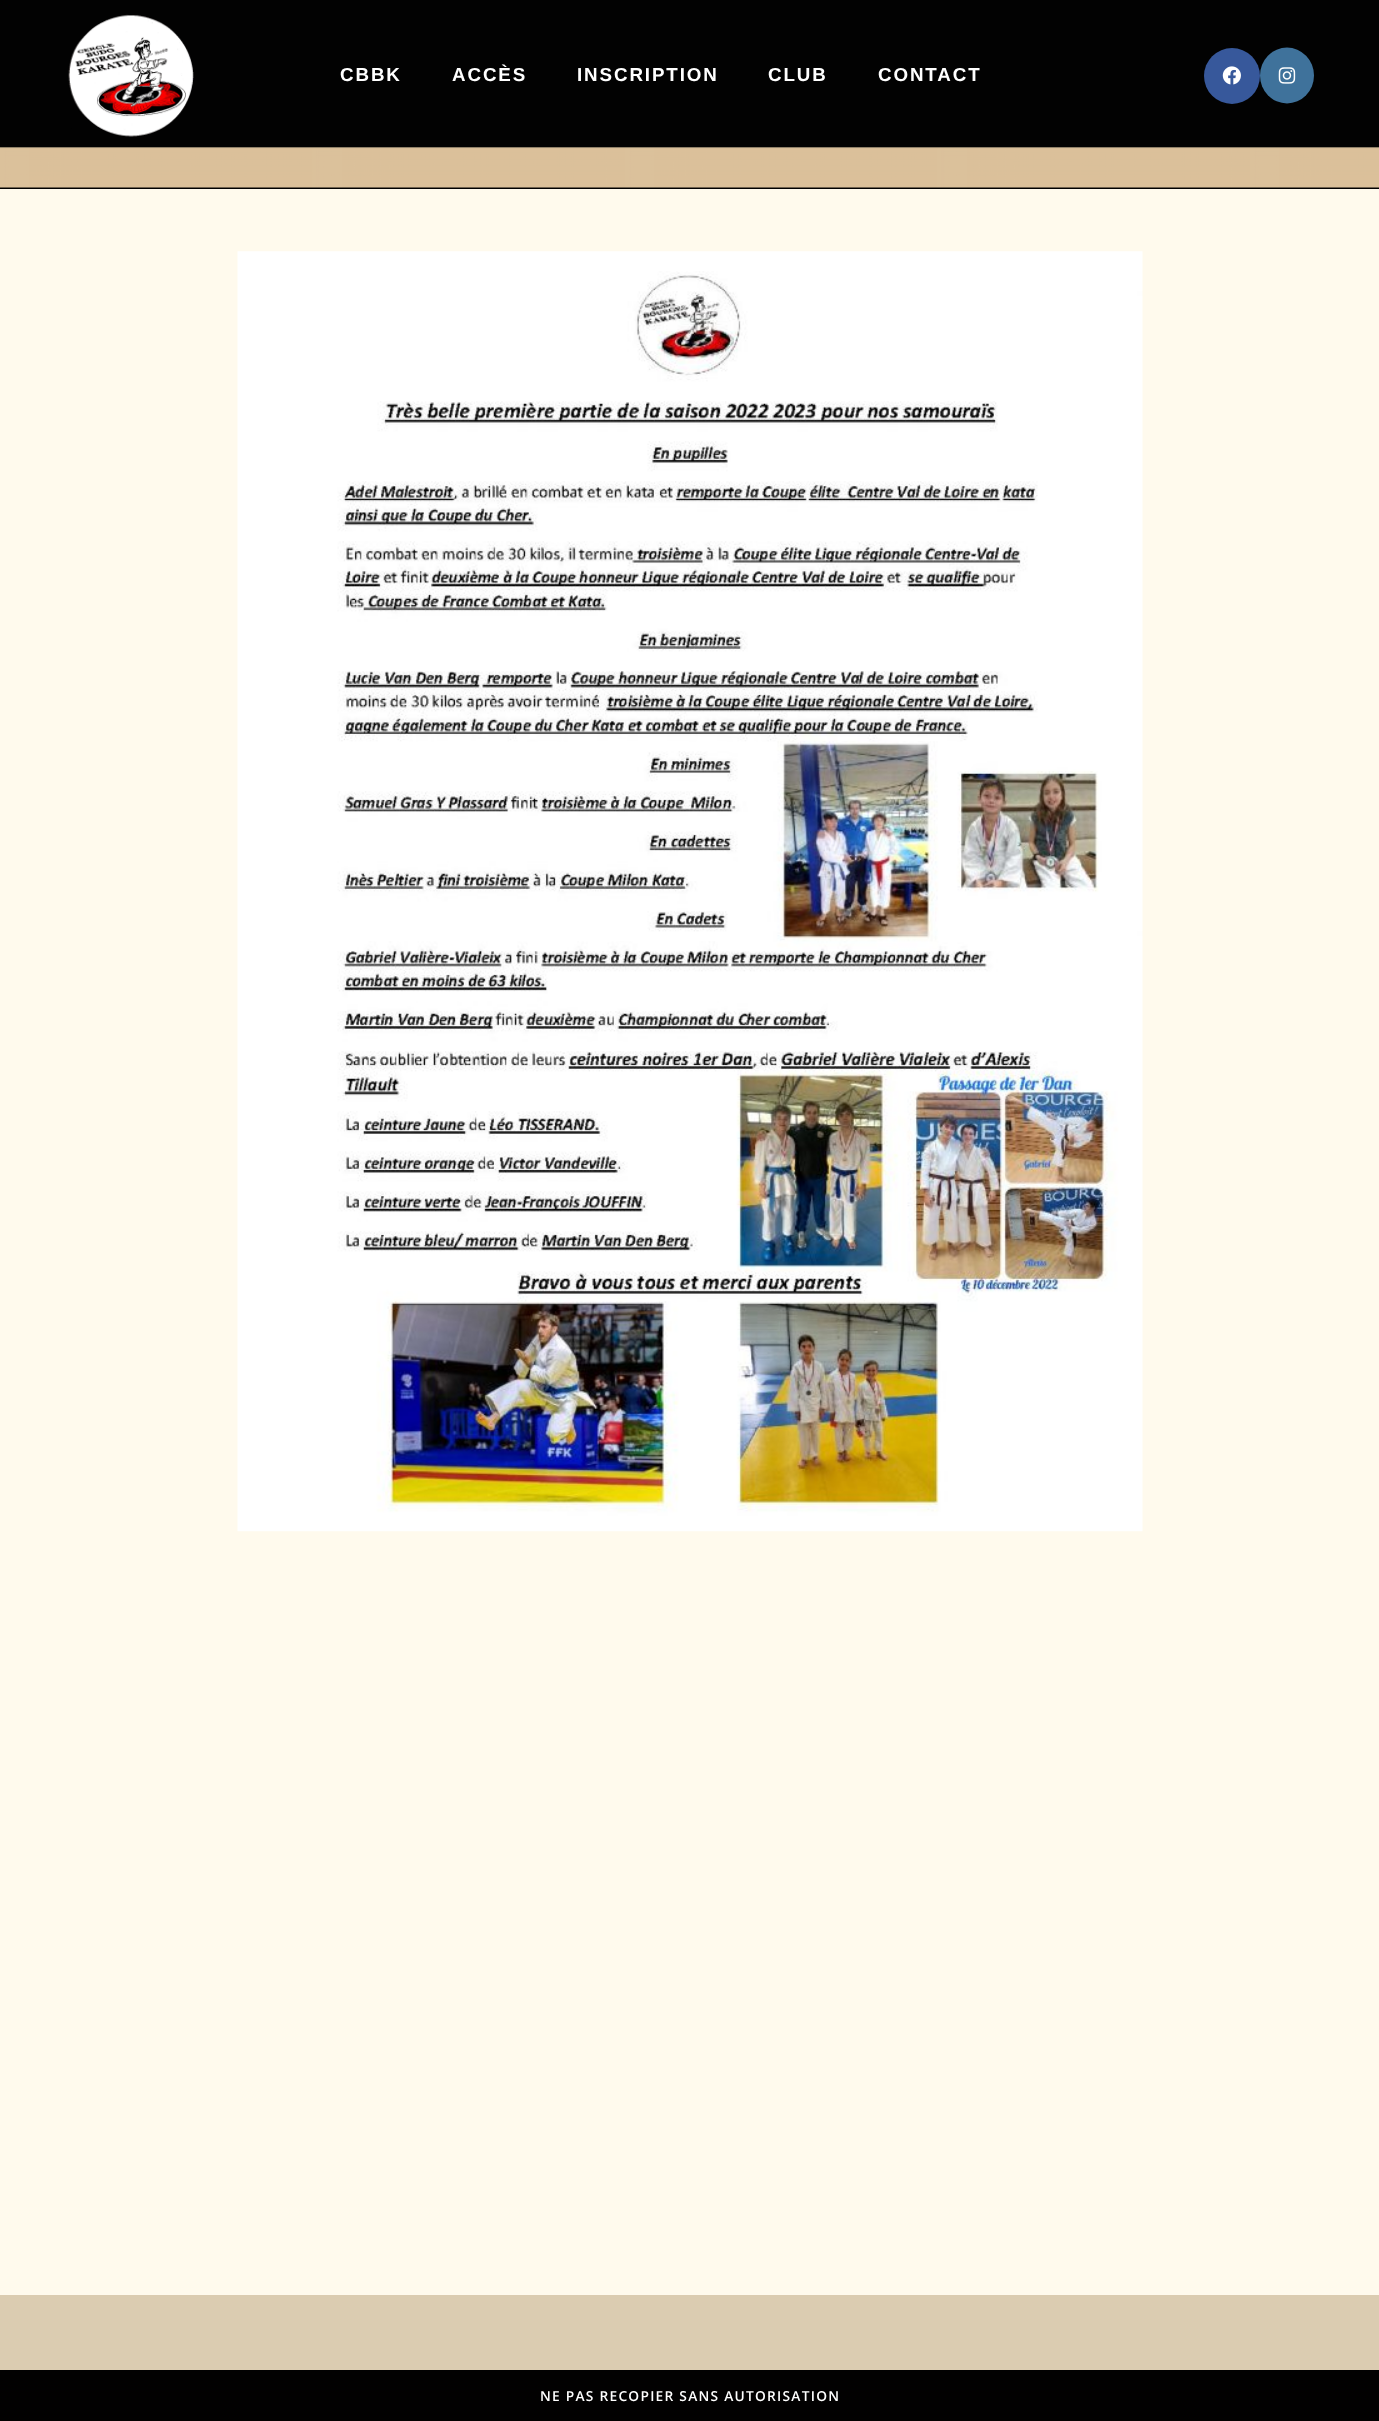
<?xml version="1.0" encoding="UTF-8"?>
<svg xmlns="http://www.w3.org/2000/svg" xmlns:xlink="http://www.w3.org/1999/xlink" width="1379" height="2421">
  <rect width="100%" height="100%" fill="#fffaed" />
  <rect width="1379" height="188" fill="#020202" />
  <image x="0" y="147" width="1379" height="41" xlink:href="image1.png" />
  <rect y="188" width="1379" height="1" fill="#000000" />
  <image x="68" y="14" width="126" height="123" xlink:href="image2.png" />
  <circle cx="1232" cy="76" r="28" fill="#37589b" />
  <image x="1222" y="66" width="19" height="19" xlink:href="image3.png" />
  <ellipse cx="1287" cy="75.5" rx="27" ry="28" fill="#3f729b" />
  <image x="1278" y="67" width="18" height="17" xlink:href="image4.png" />
  <image x="237" y="251" width="906" height="1281" xlink:href="image5.png" />
  <rect y="2295" width="1379" height="75" fill="#dbccb1" />
  <rect y="2370" width="1379" height="51" fill="#020101" />
  <text x="340" y="81" style="font-family: Liberation Sans; font-size: 18.75px; font-weight: bold; letter-spacing: 1.9px; fill: #ffffff">CBBK</text>
  <text x="452" y="81" style="font-family: Liberation Sans; font-size: 18.75px; font-weight: bold; letter-spacing: 1.9px; fill: #ffffff">ACCÈS</text>
  <text x="577" y="81" style="font-family: Liberation Sans; font-size: 18.75px; font-weight: bold; letter-spacing: 1.9px; fill: #ffffff">INSCRIPTION</text>
  <text x="768" y="81" style="font-family: Liberation Sans; font-size: 18.75px; font-weight: bold; letter-spacing: 1.9px; fill: #ffffff">CLUB</text>
  <text x="878" y="81" style="font-family: Liberation Sans; font-size: 18.75px; font-weight: bold; letter-spacing: 1.9px; fill: #ffffff">CONTACT</text>
  <text x="540" y="2401" style="font-family: Open Sans; font-size: 13.75px; font-weight: 600; letter-spacing: 1.25px; fill: #ffffff">NE PAS RECOPIER SANS AUTORISATION</text>
</svg>
